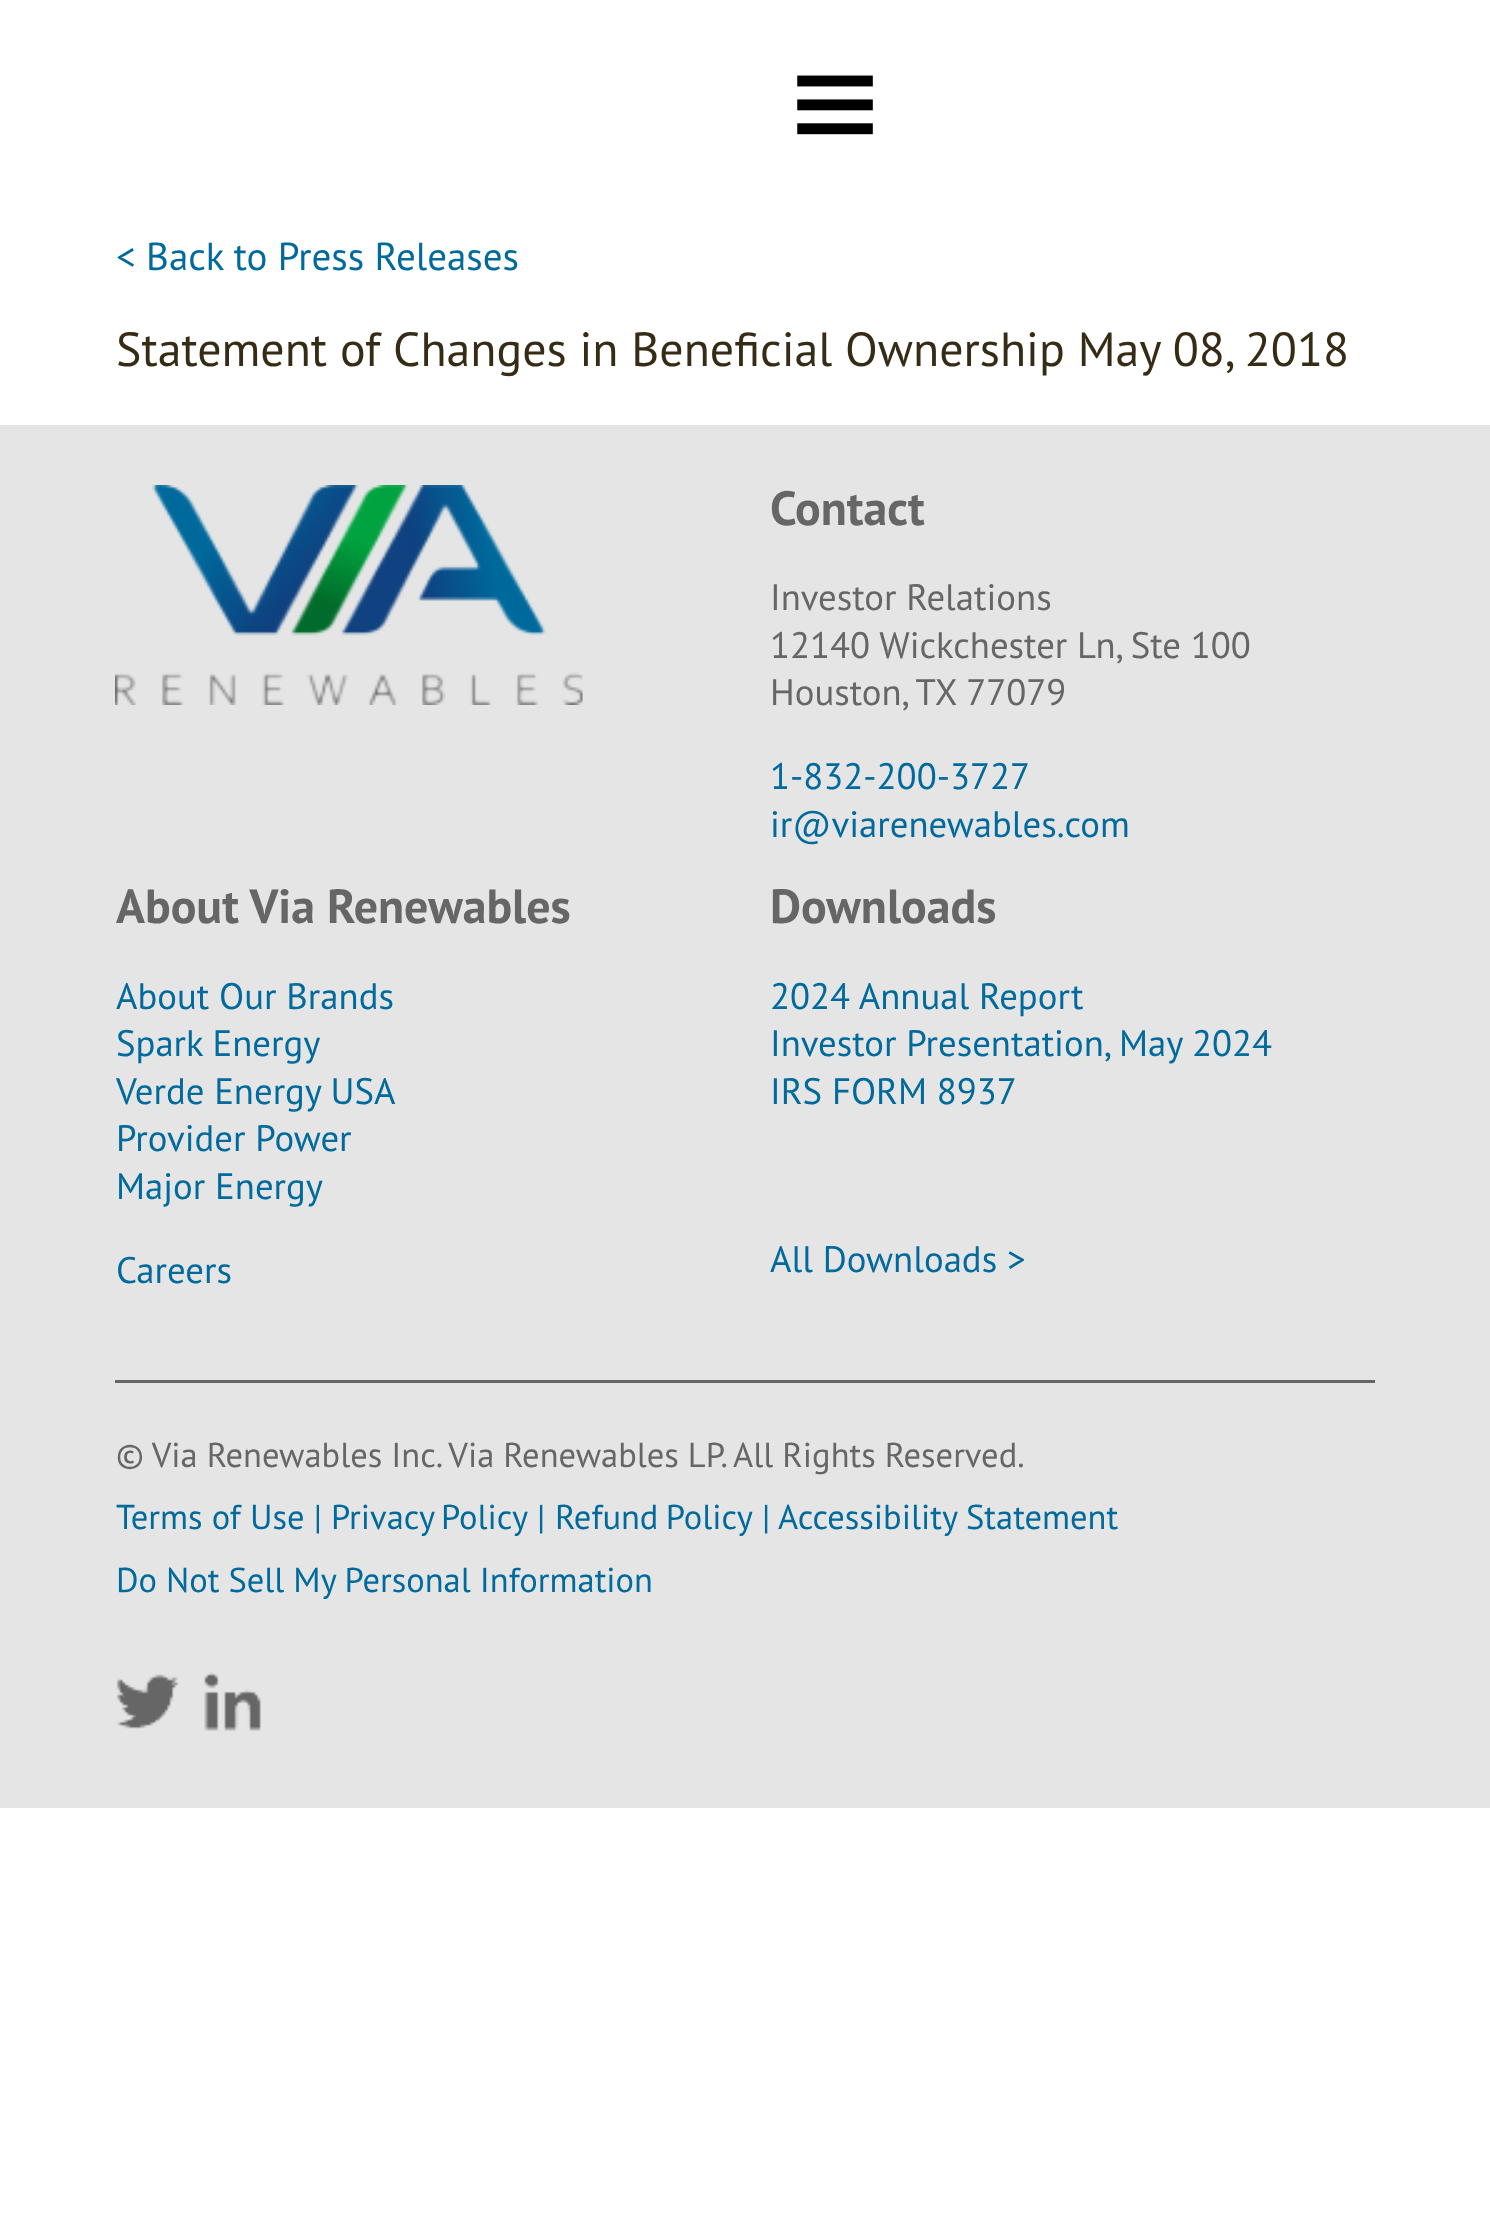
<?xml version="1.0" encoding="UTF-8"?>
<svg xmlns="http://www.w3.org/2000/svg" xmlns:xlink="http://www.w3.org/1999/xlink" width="1490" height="2238">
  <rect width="100%" height="100%" fill="#ffffff" />
  <image x="797" y="75" width="76" height="60" xlink:href="image1.png" />
  <rect y="425" width="1490" height="1383" fill="#e5e5e5" />
  <image x="115" y="485" width="468" height="220" xlink:href="image2.png" />
  <rect x="115" y="1380" width="1260" height="3" fill="#666667" />
  <image x="116" y="1674" width="63" height="55" xlink:href="image3.png" />
  <image x="204" y="1672" width="57" height="59" xlink:href="image4.png" />
  <text x="116" y="270" style="font-family: PT Sans; font-size: 39px; fill: #006a9c">&lt; Back to Press Releases</text>
  <text x="116" y="366" style="font-family: PT Sans; font-size: 47.9px; fill: #362c16">Statement of Changes in Beneficial Ownership May 08, 2018</text>
  <text x="770" y="525" style="font-family: PT Sans; font-size: 47.9px; font-weight: bold; fill: #666667">Contact</text>
  <text x="770" y="610" style="font-family: PT Sans; font-size: 36.75px; fill: #666667">Investor Relations</text>
  <text x="770" y="658" style="font-family: PT Sans; font-size: 36.75px; fill: #666667">12140 Wickchester Ln, Ste 100</text>
  <text x="770" y="705" style="font-family: PT Sans; font-size: 36.75px; fill: #666667">Houston, TX 77079</text>
  <text x="770" y="789" style="font-family: PT Sans; font-size: 36.75px; fill: #006a9c">1-832-200-3727</text>
  <text x="770" y="837" style="font-family: PT Sans; font-size: 36.75px; fill: #006a9c">ir@viarenewables.com</text>
  <text x="116" y="923" style="font-family: PT Sans; font-size: 47.9px; font-weight: bold; fill: #666667">About Via Renewables</text>
  <text x="116" y="1009" style="font-family: PT Sans; font-size: 36.75px; fill: #006a9c">About Our Brands</text>
  <text x="116" y="1056" style="font-family: PT Sans; font-size: 36.75px; fill: #006a9c">Spark Energy</text>
  <text x="116" y="1104" style="font-family: PT Sans; font-size: 36.75px; fill: #006a9c">Verde Energy USA</text>
  <text x="116" y="1151" style="font-family: PT Sans; font-size: 36.75px; fill: #006a9c">Provider Power</text>
  <text x="116" y="1199" style="font-family: PT Sans; font-size: 36.75px; fill: #006a9c">Major Energy</text>
  <text x="116" y="1283" style="font-family: PT Sans; font-size: 36.75px; fill: #006a9c">Careers</text>
  <text x="770" y="923" style="font-family: PT Sans; font-size: 47.9px; font-weight: bold; fill: #666667">Downloads</text>
  <text x="770" y="1009" style="font-family: PT Sans; font-size: 36.75px; fill: #006a9c">2024 Annual Report</text>
  <text x="770" y="1056" style="font-family: PT Sans; font-size: 36.75px; fill: #006a9c">Investor Presentation, May 2024</text>
  <text x="770" y="1104" style="font-family: PT Sans; font-size: 36.75px; fill: #006a9c">IRS FORM 8937</text>
  <text x="770" y="1272" style="font-family: PT Sans; font-size: 36.75px; fill: #006a9c">All Downloads &gt;</text>
  <text x="116" y="1467" word-spacing="-0.25" style="font-family: PT Sans; font-size: 34.5px; fill: #666667">© Via Renewables Inc. Via Renewables LP. All Rights Reserved.</text>
  <text x="116" y="1529" style="font-family: PT Sans; font-size: 34.5px; fill: #006a9c">Terms of Use |</text>
  <text x="331" y="1529" word-spacing="-2" style="font-family: PT Sans; font-size: 34.5px; fill: #006a9c">Privacy Policy</text>
  <text x="537" y="1529" style="font-family: PT Sans; font-size: 34.5px; fill: #006a9c">|</text>
  <text x="555" y="1529" word-spacing="-2" style="font-family: PT Sans; font-size: 34.5px; fill: #006a9c">Refund Policy</text>
  <text x="762" y="1529" style="font-family: PT Sans; font-size: 34.5px; fill: #006a9c">|</text>
  <text x="778" y="1529" style="font-family: PT Sans; font-size: 34.5px; fill: #006a9c">Accessibility Statement</text>
  <text x="116" y="1592" word-spacing="-0.25" style="font-family: PT Sans; font-size: 34.5px; fill: #006a9c">Do Not Sell My Personal Information</text>
</svg>
